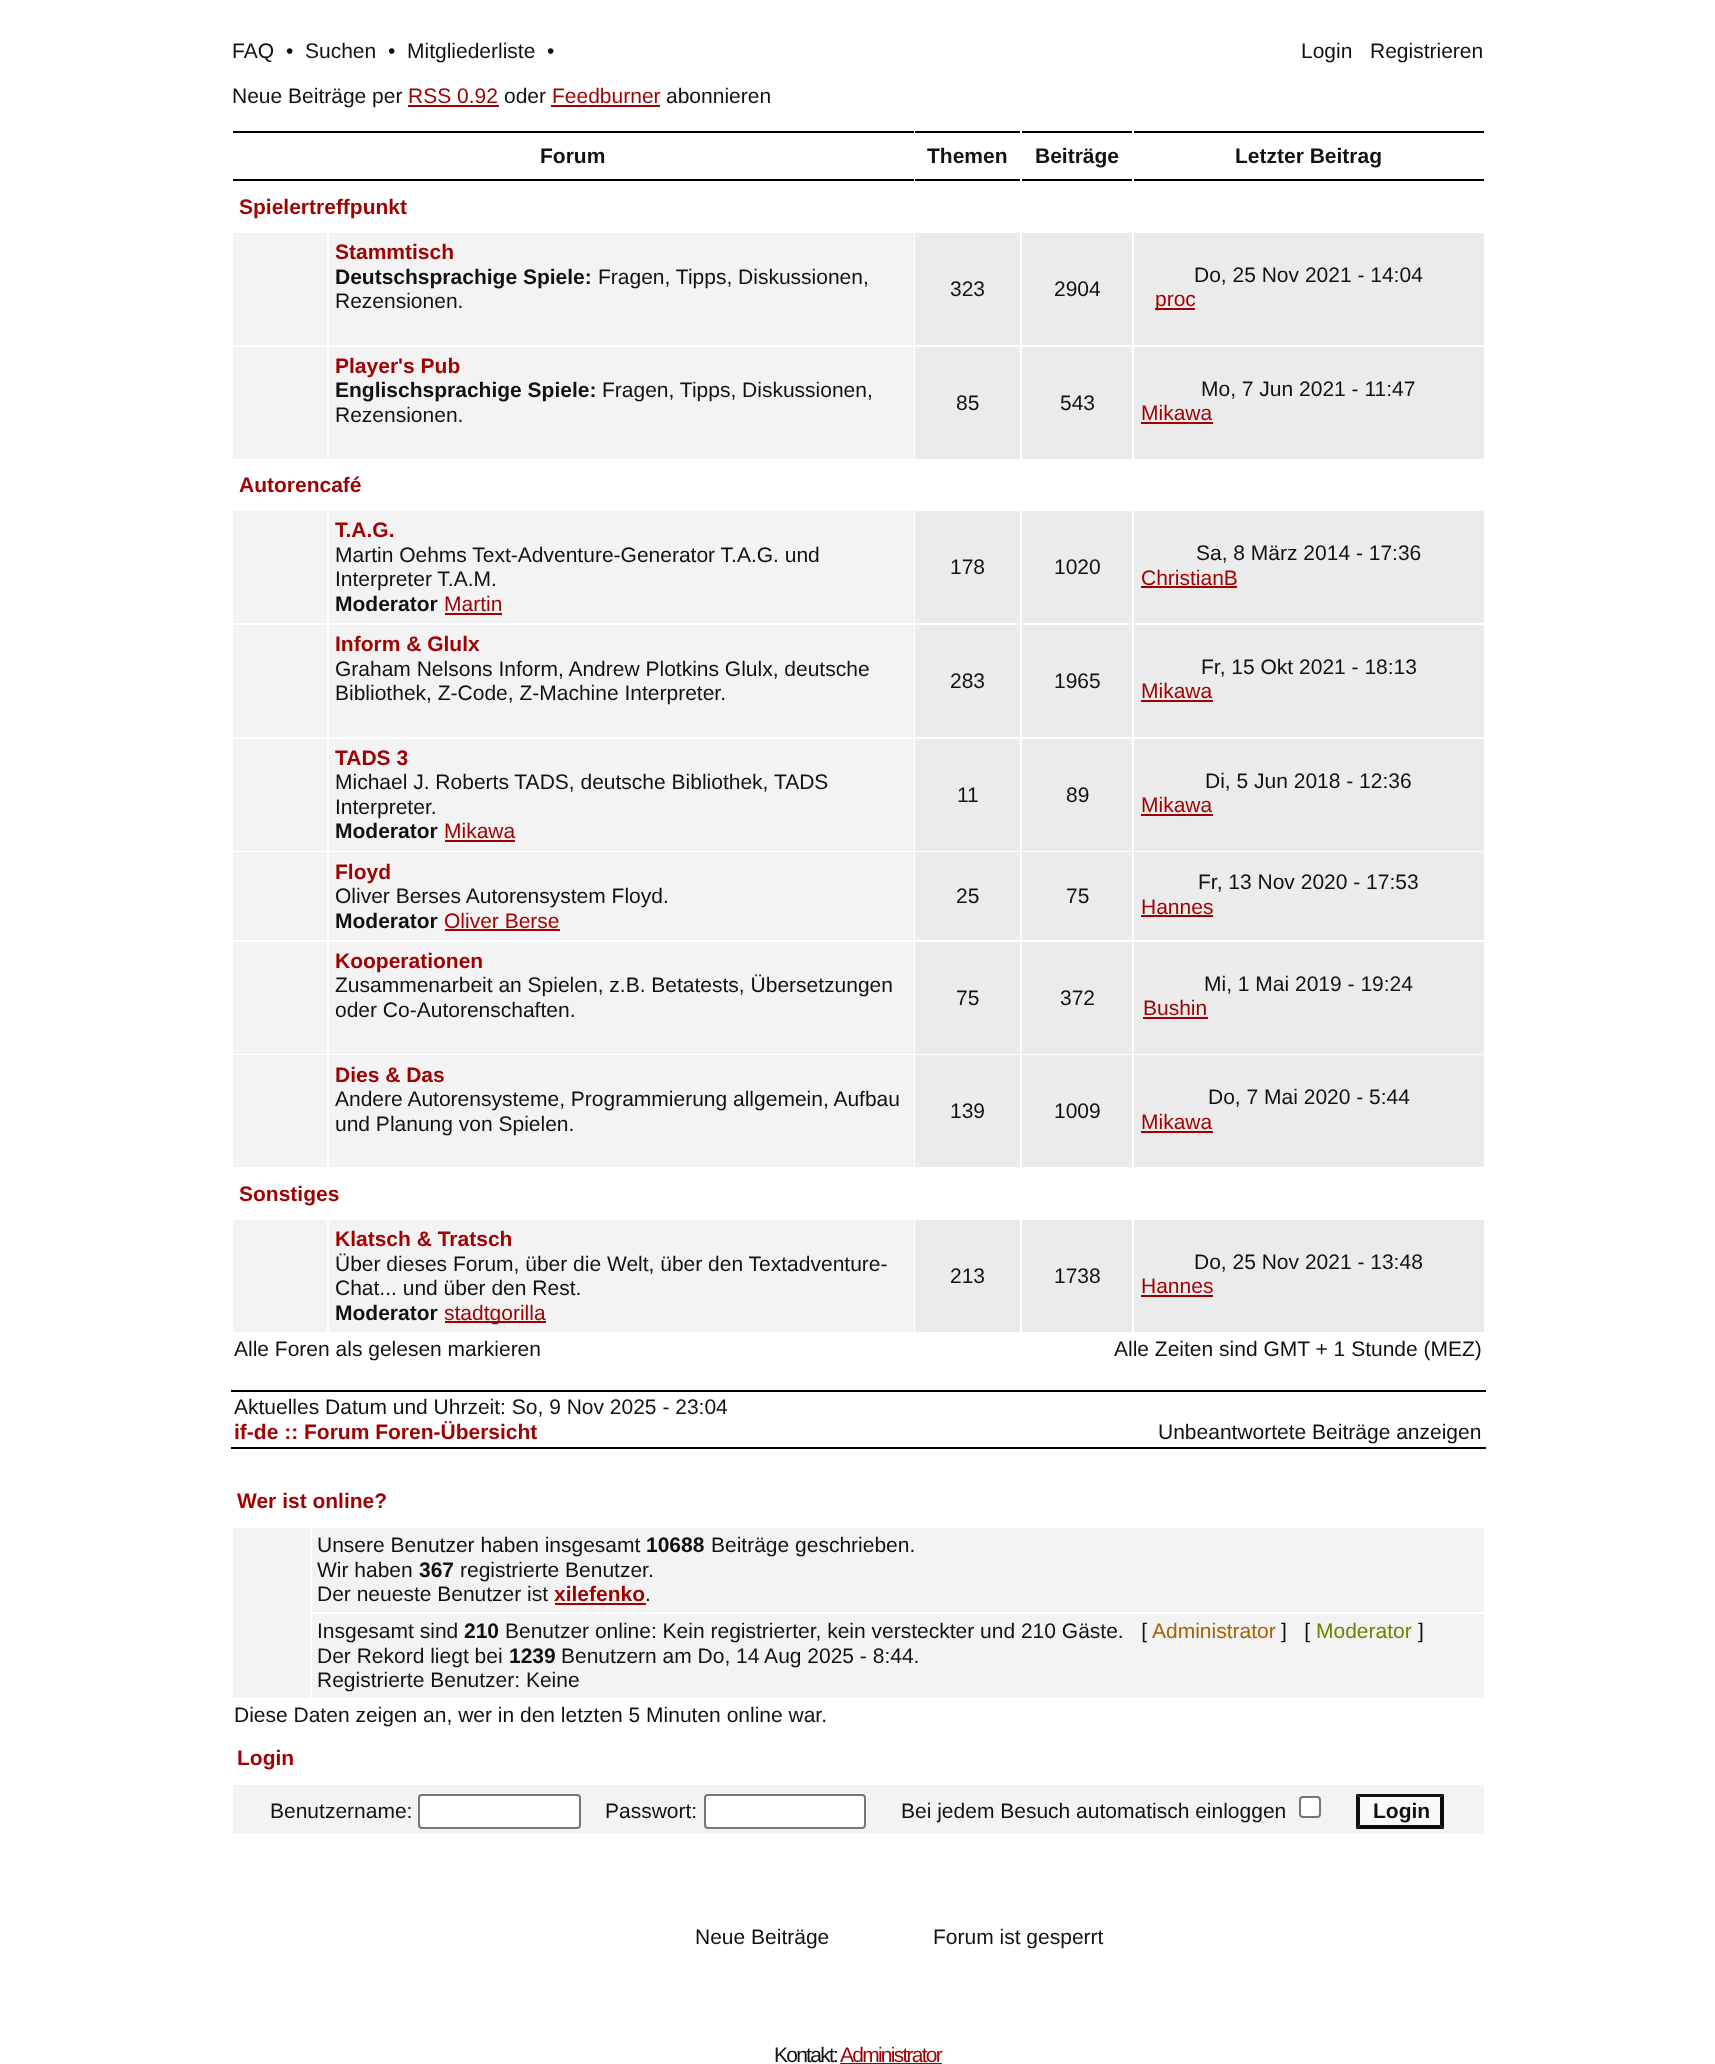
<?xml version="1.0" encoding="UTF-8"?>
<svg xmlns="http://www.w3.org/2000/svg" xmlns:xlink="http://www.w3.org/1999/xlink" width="1715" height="2064">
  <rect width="100%" height="100%" fill="#ffffff" />
  <rect x="408" y="105" width="91" height="2" fill="#9f0002" />
  <rect x="551" y="105" width="109" height="2" fill="#9f0002" />
  <rect x="233" y="131" width="681" height="2" fill="#000000" />
  <rect x="233" y="179" width="681" height="2" fill="#000000" />
  <rect x="915" y="131" width="105" height="2" fill="#000000" />
  <rect x="915" y="179" width="105" height="2" fill="#000000" />
  <rect x="1022" y="131" width="110" height="2" fill="#000000" />
  <rect x="1022" y="179" width="110" height="2" fill="#000000" />
  <rect x="1134" y="131" width="350" height="2" fill="#000000" />
  <rect x="1134" y="179" width="350" height="2" fill="#000000" />
  <rect x="233" y="233" width="94" height="112" fill="#f3f3f3" />
  <rect x="329" y="233" width="585" height="112" fill="#f3f3f3" />
  <rect x="915" y="233" width="105" height="112" fill="#ebebeb" />
  <rect x="1022" y="233" width="110" height="112" fill="#ebebeb" />
  <rect x="1134" y="233" width="350" height="112" fill="#ebebeb" />
  <rect x="1155" y="308" width="40" height="2" fill="#9f0002" />
  <rect x="233" y="347" width="94" height="112" fill="#f3f3f3" />
  <rect x="329" y="347" width="585" height="112" fill="#f3f3f3" />
  <rect x="915" y="347" width="105" height="112" fill="#ebebeb" />
  <rect x="1022" y="347" width="110" height="112" fill="#ebebeb" />
  <rect x="1134" y="347" width="350" height="112" fill="#ebebeb" />
  <rect x="1141" y="422" width="72" height="2" fill="#9f0002" />
  <rect x="233" y="511" width="94" height="112" fill="#f3f3f3" />
  <rect x="329" y="511" width="585" height="112" fill="#f3f3f3" />
  <rect x="445" y="613" width="57" height="2" fill="#9f0002" />
  <rect x="915" y="511" width="105" height="112" fill="#ebebeb" />
  <rect x="1022" y="511" width="110" height="112" fill="#ebebeb" />
  <rect x="1134" y="511" width="350" height="112" fill="#ebebeb" />
  <rect x="1141" y="586" width="96" height="2" fill="#9f0002" />
  <rect x="233" y="625" width="94" height="112" fill="#f3f3f3" />
  <rect x="329" y="625" width="585" height="112" fill="#f3f3f3" />
  <rect x="915" y="625" width="105" height="112" fill="#ebebeb" />
  <rect x="1022" y="625" width="110" height="112" fill="#ebebeb" />
  <rect x="1134" y="625" width="350" height="112" fill="#ebebeb" />
  <rect x="1141" y="700" width="72" height="2" fill="#9f0002" />
  <rect x="233" y="739" width="94" height="112" fill="#f3f3f3" />
  <rect x="329" y="739" width="585" height="112" fill="#f3f3f3" />
  <rect x="445" y="840" width="70" height="2" fill="#9f0002" />
  <rect x="915" y="739" width="105" height="112" fill="#ebebeb" />
  <rect x="1022" y="739" width="110" height="112" fill="#ebebeb" />
  <rect x="1134" y="739" width="350" height="112" fill="#ebebeb" />
  <rect x="1141" y="814" width="72" height="2" fill="#9f0002" />
  <rect x="233" y="852" width="94" height="88" fill="#f3f3f3" />
  <rect x="329" y="852" width="585" height="88" fill="#f3f3f3" />
  <rect x="445" y="929" width="115" height="2" fill="#9f0002" />
  <rect x="915" y="852" width="105" height="88" fill="#ebebeb" />
  <rect x="1022" y="852" width="110" height="88" fill="#ebebeb" />
  <rect x="1134" y="852" width="350" height="88" fill="#ebebeb" />
  <rect x="1141" y="915" width="72" height="2" fill="#9f0002" />
  <rect x="233" y="942" width="94" height="112" fill="#f3f3f3" />
  <rect x="329" y="942" width="585" height="112" fill="#f3f3f3" />
  <rect x="915" y="942" width="105" height="112" fill="#ebebeb" />
  <rect x="1022" y="942" width="110" height="112" fill="#ebebeb" />
  <rect x="1134" y="942" width="350" height="112" fill="#ebebeb" />
  <rect x="1143" y="1017" width="65" height="2" fill="#9f0002" />
  <rect x="233" y="1055" width="94" height="112" fill="#f3f3f3" />
  <rect x="329" y="1055" width="585" height="112" fill="#f3f3f3" />
  <rect x="915" y="1055" width="105" height="112" fill="#ebebeb" />
  <rect x="1022" y="1055" width="110" height="112" fill="#ebebeb" />
  <rect x="1134" y="1055" width="350" height="112" fill="#ebebeb" />
  <rect x="1141" y="1131" width="72" height="2" fill="#9f0002" />
  <rect x="233" y="1220" width="94" height="112" fill="#f3f3f3" />
  <rect x="329" y="1220" width="585" height="112" fill="#f3f3f3" />
  <rect x="445" y="1321" width="101" height="2" fill="#9f0002" />
  <rect x="915" y="1220" width="105" height="112" fill="#ebebeb" />
  <rect x="1022" y="1220" width="110" height="112" fill="#ebebeb" />
  <rect x="1134" y="1220" width="350" height="112" fill="#ebebeb" />
  <rect x="1141" y="1295" width="72" height="2" fill="#9f0002" />
  <rect x="231" y="1390" width="1255" height="2" fill="#000000" />
  <rect x="231" y="1447" width="1255" height="2" fill="#000000" />
  <rect x="233" y="1528" width="77" height="170" fill="#f3f3f3" />
  <rect x="312" y="1528" width="1172" height="84" fill="#f3f3f3" />
  <rect x="555" y="1603" width="91" height="2" fill="#9f0002" />
  <rect x="312" y="1614" width="1172" height="84" fill="#f3f3f3" />
  <rect x="233" y="1785" width="1251" height="49" fill="#f3f3f3" />
  <rect x="419" y="1795" width="161" height="33" rx="3" fill="#ffffff" stroke="#767676" stroke-width="2" />
  <rect x="705" y="1795" width="160" height="33" rx="3" fill="#ffffff" stroke="#767676" stroke-width="2" />
  <rect x="1300" y="1797" width="20" height="20" rx="3" fill="#ffffff" stroke="#767676" stroke-width="2" />
  <rect x="1356" y="1794" width="88" height="35" fill="#fafafa" />
  <path d="M 1356 1794 h 88 l -4 3 h -80 z" fill="#111111" />
  <path d="M 1444 1794 v 35 l -4 -4 v -28 z" fill="#0b0b0b" />
  <path d="M 1444 1829 h -88 l 4 -4 h 80 z" fill="#0b0b0b" />
  <path d="M 1356 1829 v -35 l 4 3 v 28 z" fill="#111111" />
  <rect x="840" y="2063" width="102" height="1" fill="#9f0002" />
  <text x="232" y="58" style="font-family: Liberation Sans; font-size: 21px; fill: #111111">FAQ</text>
  <text x="286" y="58" style="font-family: Liberation Sans; font-size: 21px; fill: #111111">•</text>
  <text x="305" y="58" style="font-family: Liberation Sans; font-size: 21px; fill: #111111">Suchen</text>
  <text x="388" y="58" style="font-family: Liberation Sans; font-size: 21px; fill: #111111">•</text>
  <text x="407" y="58" style="font-family: Liberation Sans; font-size: 21px; fill: #111111">Mitgliederliste</text>
  <text x="547" y="58" style="font-family: Liberation Sans; font-size: 21px; fill: #111111">•</text>
  <text x="1301" y="58" style="font-family: Liberation Sans; font-size: 21px; fill: #111111">Login</text>
  <text x="1370" y="58" style="font-family: Liberation Sans; font-size: 21px; fill: #111111">Registrieren</text>
  <text x="232" y="103" style="font-family: Liberation Sans; font-size: 21px; fill: #111111">Neue Beiträge per</text>
  <text x="408" y="103" style="font-family: Liberation Sans; font-size: 21px; fill: #9f0002">RSS 0.92</text>
  <text x="504" y="103" style="font-family: Liberation Sans; font-size: 21px; fill: #111111">oder</text>
  <text x="552" y="103" style="font-family: Liberation Sans; font-size: 21px; fill: #9f0002">Feedburner</text>
  <text x="666" y="103" style="font-family: Liberation Sans; font-size: 21px; fill: #111111">abonnieren</text>
  <text x="540" y="163" style="font-family: Liberation Sans; font-size: 21px; font-weight: bold; fill: #111111">Forum</text>
  <text x="927" y="163" style="font-family: Liberation Sans; font-size: 21px; font-weight: bold; fill: #111111">Themen</text>
  <text x="1035" y="163" style="font-family: Liberation Sans; font-size: 21px; font-weight: bold; fill: #111111">Beiträge</text>
  <text x="1235" y="163" style="font-family: Liberation Sans; font-size: 21px; font-weight: bold; fill: #111111">Letzter Beitrag</text>
  <text x="239" y="214" style="font-family: Liberation Sans; font-size: 21px; font-weight: bold; fill: #9f0002">Spielertreffpunkt</text>
  <text x="335" y="259" style="font-family: Liberation Sans; font-size: 21px; font-weight: bold; fill: #9f0002">Stammtisch</text>
  <text x="335" y="284" style="font-family: Liberation Sans; font-size: 21px; font-weight: bold; fill: #111111">Deutschsprachige Spiele:</text>
  <text x="598" y="284" style="font-family: Liberation Sans; font-size: 21px; fill: #111111">Fragen, Tipps, Diskussionen,</text>
  <text x="335" y="308" style="font-family: Liberation Sans; font-size: 21px; fill: #111111">Rezensionen.</text>
  <text x="950" y="296" style="font-family: Liberation Sans; font-size: 21px; fill: #111111">323</text>
  <text x="1054" y="296" style="font-family: Liberation Sans; font-size: 21px; fill: #111111">2904</text>
  <text x="1194" y="282" style="font-family: Liberation Sans; font-size: 21px; fill: #111111">Do, 25 Nov 2021 - 14:04</text>
  <text x="1155" y="306" style="font-family: Liberation Sans; font-size: 21px; fill: #9f0002">proc</text>
  <text x="335" y="373" style="font-family: Liberation Sans; font-size: 21px; font-weight: bold; fill: #9f0002">Player's Pub</text>
  <text x="335" y="397" style="font-family: Liberation Sans; font-size: 21px; font-weight: bold; fill: #111111">Englischsprachige Spiele:</text>
  <text x="602" y="397" style="font-family: Liberation Sans; font-size: 21px; fill: #111111">Fragen, Tipps, Diskussionen,</text>
  <text x="335" y="422" style="font-family: Liberation Sans; font-size: 21px; fill: #111111">Rezensionen.</text>
  <text x="956" y="410" style="font-family: Liberation Sans; font-size: 21px; fill: #111111">85</text>
  <text x="1060" y="410" style="font-family: Liberation Sans; font-size: 21px; fill: #111111">543</text>
  <text x="1201" y="396" style="font-family: Liberation Sans; font-size: 21px; fill: #111111">Mo, 7 Jun 2021 - 11:47</text>
  <text x="1141" y="420" style="font-family: Liberation Sans; font-size: 21px; fill: #9f0002">Mikawa</text>
  <text x="239" y="492" style="font-family: Liberation Sans; font-size: 21px; font-weight: bold; fill: #9f0002">Autorencafé</text>
  <text x="335" y="537" style="font-family: Liberation Sans; font-size: 21px; font-weight: bold; fill: #9f0002">T.A.G.</text>
  <text x="335" y="562" style="font-family: Liberation Sans; font-size: 21px; fill: #111111">Martin Oehms Text-Adventure-Generator T.A.G. und</text>
  <text x="335" y="586" style="font-family: Liberation Sans; font-size: 21px; fill: #111111">Interpreter T.A.M.</text>
  <text x="335" y="611" style="font-family: Liberation Sans; font-size: 21px; font-weight: bold; fill: #111111">Moderator</text>
  <text x="444" y="611" style="font-family: Liberation Sans; font-size: 21px; fill: #9f0002">Martin</text>
  <text x="950" y="574" style="font-family: Liberation Sans; font-size: 21px; fill: #111111">178</text>
  <text x="1054" y="574" style="font-family: Liberation Sans; font-size: 21px; fill: #111111">1020</text>
  <text x="1196" y="560" style="font-family: Liberation Sans; font-size: 21px; fill: #111111">Sa, 8 März 2014 - 17:36</text>
  <text x="1141" y="585" style="font-family: Liberation Sans; font-size: 21px; fill: #9f0002">ChristianB</text>
  <text x="335" y="651" style="font-family: Liberation Sans; font-size: 21px; font-weight: bold; fill: #9f0002">Inform &amp; Glulx</text>
  <text x="335" y="676" style="font-family: Liberation Sans; font-size: 21px; fill: #111111">Graham Nelsons Inform, Andrew Plotkins Glulx, deutsche</text>
  <text x="335" y="700" style="font-family: Liberation Sans; font-size: 21px; fill: #111111">Bibliothek, Z-Code, Z-Machine Interpreter.</text>
  <text x="950" y="688" style="font-family: Liberation Sans; font-size: 21px; fill: #111111">283</text>
  <text x="1054" y="688" style="font-family: Liberation Sans; font-size: 21px; fill: #111111">1965</text>
  <text x="1201" y="674" style="font-family: Liberation Sans; font-size: 21px; fill: #111111">Fr, 15 Okt 2021 - 18:13</text>
  <text x="1141" y="698" style="font-family: Liberation Sans; font-size: 21px; fill: #9f0002">Mikawa</text>
  <text x="335" y="765" style="font-family: Liberation Sans; font-size: 21px; font-weight: bold; fill: #9f0002">TADS 3</text>
  <text x="335" y="789" style="font-family: Liberation Sans; font-size: 21px; fill: #111111">Michael J. Roberts TADS, deutsche Bibliothek, TADS</text>
  <text x="335" y="814" style="font-family: Liberation Sans; font-size: 21px; fill: #111111">Interpreter.</text>
  <text x="335" y="838" style="font-family: Liberation Sans; font-size: 21px; font-weight: bold; fill: #111111">Moderator</text>
  <text x="444" y="838" style="font-family: Liberation Sans; font-size: 21px; fill: #9f0002">Mikawa</text>
  <text x="957" y="802" style="font-family: Liberation Sans; font-size: 21px; fill: #111111">11</text>
  <text x="1066" y="802" style="font-family: Liberation Sans; font-size: 21px; fill: #111111">89</text>
  <text x="1205" y="788" style="font-family: Liberation Sans; font-size: 21px; fill: #111111">Di, 5 Jun 2018 - 12:36</text>
  <text x="1141" y="812" style="font-family: Liberation Sans; font-size: 21px; fill: #9f0002">Mikawa</text>
  <text x="335" y="879" style="font-family: Liberation Sans; font-size: 21px; font-weight: bold; fill: #9f0002">Floyd</text>
  <text x="335" y="903" style="font-family: Liberation Sans; font-size: 21px; fill: #111111">Oliver Berses Autorensystem Floyd.</text>
  <text x="335" y="928" style="font-family: Liberation Sans; font-size: 21px; font-weight: bold; fill: #111111">Moderator</text>
  <text x="444" y="928" style="font-family: Liberation Sans; font-size: 21px; fill: #9f0002">Oliver Berse</text>
  <text x="956" y="903" style="font-family: Liberation Sans; font-size: 21px; fill: #111111">25</text>
  <text x="1066" y="903" style="font-family: Liberation Sans; font-size: 21px; fill: #111111">75</text>
  <text x="1198" y="889" style="font-family: Liberation Sans; font-size: 21px; fill: #111111">Fr, 13 Nov 2020 - 17:53</text>
  <text x="1141" y="914" style="font-family: Liberation Sans; font-size: 21px; fill: #9f0002">Hannes</text>
  <text x="335" y="968" style="font-family: Liberation Sans; font-size: 21px; font-weight: bold; fill: #9f0002">Kooperationen</text>
  <text x="335" y="992" style="font-family: Liberation Sans; font-size: 21px; fill: #111111">Zusammenarbeit an Spielen, z.B. Betatests, Übersetzungen</text>
  <text x="335" y="1017" style="font-family: Liberation Sans; font-size: 21px; fill: #111111">oder Co-Autorenschaften.</text>
  <text x="956" y="1005" style="font-family: Liberation Sans; font-size: 21px; fill: #111111">75</text>
  <text x="1060" y="1005" style="font-family: Liberation Sans; font-size: 21px; fill: #111111">372</text>
  <text x="1204" y="991" style="font-family: Liberation Sans; font-size: 21px; fill: #111111">Mi, 1 Mai 2019 - 19:24</text>
  <text x="1143" y="1015" style="font-family: Liberation Sans; font-size: 21px; fill: #9f0002">Bushin</text>
  <text x="335" y="1082" style="font-family: Liberation Sans; font-size: 21px; font-weight: bold; fill: #9f0002">Dies &amp; Das</text>
  <text x="335" y="1106" style="font-family: Liberation Sans; font-size: 21px; fill: #111111">Andere Autorensysteme, Programmierung allgemein, Aufbau</text>
  <text x="335" y="1131" style="font-family: Liberation Sans; font-size: 21px; fill: #111111">und Planung von Spielen.</text>
  <text x="950" y="1118" style="font-family: Liberation Sans; font-size: 21px; fill: #111111">139</text>
  <text x="1054" y="1118" style="font-family: Liberation Sans; font-size: 21px; fill: #111111">1009</text>
  <text x="1208" y="1104" style="font-family: Liberation Sans; font-size: 21px; fill: #111111">Do, 7 Mai 2020 - 5:44</text>
  <text x="1141" y="1129" style="font-family: Liberation Sans; font-size: 21px; fill: #9f0002">Mikawa</text>
  <text x="239" y="1201" style="font-family: Liberation Sans; font-size: 21px; font-weight: bold; fill: #9f0002">Sonstiges</text>
  <text x="335" y="1246" style="font-family: Liberation Sans; font-size: 21px; font-weight: bold; fill: #9f0002">Klatsch &amp; Tratsch</text>
  <text x="335" y="1271" style="font-family: Liberation Sans; font-size: 21px; fill: #111111">Über dieses Forum, über die Welt, über den Textadventure-</text>
  <text x="335" y="1295" style="font-family: Liberation Sans; font-size: 21px; fill: #111111">Chat... und über den Rest.</text>
  <text x="335" y="1320" style="font-family: Liberation Sans; font-size: 21px; font-weight: bold; fill: #111111">Moderator</text>
  <text x="444" y="1320" style="font-family: Liberation Sans; font-size: 21px; fill: #9f0002">stadtgorilla</text>
  <text x="950" y="1283" style="font-family: Liberation Sans; font-size: 21px; fill: #111111">213</text>
  <text x="1054" y="1283" style="font-family: Liberation Sans; font-size: 21px; fill: #111111">1738</text>
  <text x="1194" y="1269" style="font-family: Liberation Sans; font-size: 21px; fill: #111111">Do, 25 Nov 2021 - 13:48</text>
  <text x="1141" y="1293" style="font-family: Liberation Sans; font-size: 21px; fill: #9f0002">Hannes</text>
  <text x="234" y="1356" style="font-family: Liberation Sans; font-size: 21px; fill: #111111">Alle Foren als gelesen markieren</text>
  <text x="1114" y="1356" style="font-family: Liberation Sans; font-size: 21px; fill: #111111">Alle Zeiten sind GMT + 1 Stunde (MEZ)</text>
  <text x="234" y="1414" style="font-family: Liberation Sans; font-size: 21px; fill: #111111">Aktuelles Datum und Uhrzeit: So, 9 Nov 2025 - 23:04</text>
  <text x="234" y="1439" style="font-family: Liberation Sans; font-size: 21px; font-weight: bold; fill: #9f0002">if-de :: Forum Foren-Übersicht</text>
  <text x="1158" y="1439" style="font-family: Liberation Sans; font-size: 21px; fill: #111111">Unbeantwortete Beiträge anzeigen</text>
  <text x="237" y="1508" style="font-family: Liberation Sans; font-size: 21px; font-weight: bold; fill: #9f0002">Wer ist online?</text>
  <text x="317" y="1552" style="font-family: Liberation Sans; font-size: 21px; fill: #111111">Unsere Benutzer haben insgesamt</text>
  <text x="646" y="1552" style="font-family: Liberation Sans; font-size: 21px; font-weight: bold; fill: #111111">10688</text>
  <text x="711" y="1552" style="font-family: Liberation Sans; font-size: 21px; fill: #111111">Beiträge geschrieben.</text>
  <text x="317" y="1577" style="font-family: Liberation Sans; font-size: 21px; fill: #111111">Wir haben</text>
  <text x="419" y="1577" style="font-family: Liberation Sans; font-size: 21px; font-weight: bold; fill: #111111">367</text>
  <text x="460" y="1577" style="font-family: Liberation Sans; font-size: 21px; fill: #111111">registrierte Benutzer.</text>
  <text x="317" y="1601" style="font-family: Liberation Sans; font-size: 21px; fill: #111111">Der neueste Benutzer ist</text>
  <text x="554" y="1601" style="font-family: Liberation Sans; font-size: 21px; font-weight: bold; fill: #9f0002">xilefenko</text>
  <text x="645" y="1601" style="font-family: Liberation Sans; font-size: 21px; fill: #111111">.</text>
  <text x="317" y="1638" style="font-family: Liberation Sans; font-size: 21px; fill: #111111">Insgesamt sind</text>
  <text x="464" y="1638" style="font-family: Liberation Sans; font-size: 21px; font-weight: bold; fill: #111111">210</text>
  <text x="505" y="1638" style="font-family: Liberation Sans; font-size: 21px; fill: #111111" xml:space="preserve">Benutzer online: Kein registrierter, kein versteckter und 210 Gäste.   [</text>
  <text x="1152" y="1638" style="font-family: Liberation Sans; font-size: 21px; fill: #a76100">Administrator</text>
  <text x="1281" y="1638" style="font-family: Liberation Sans; font-size: 21px; fill: #111111" xml:space="preserve">]   [</text>
  <text x="1316" y="1638" style="font-family: Liberation Sans; font-size: 21px; fill: #668400">Moderator</text>
  <text x="1418" y="1638" style="font-family: Liberation Sans; font-size: 21px; fill: #111111">]</text>
  <text x="317" y="1663" style="font-family: Liberation Sans; font-size: 21px; fill: #111111">Der Rekord liegt bei</text>
  <text x="509" y="1663" style="font-family: Liberation Sans; font-size: 21px; font-weight: bold; fill: #111111">1239</text>
  <text x="561" y="1663" style="font-family: Liberation Sans; font-size: 21px; fill: #111111">Benutzern am Do, 14 Aug 2025 - 8:44.</text>
  <text x="317" y="1687" style="font-family: Liberation Sans; font-size: 21px; fill: #111111">Registrierte Benutzer: Keine</text>
  <text x="234" y="1722" style="font-family: Liberation Sans; font-size: 21px; fill: #111111">Diese Daten zeigen an, wer in den letzten 5 Minuten online war.</text>
  <text x="237" y="1765" style="font-family: Liberation Sans; font-size: 21px; font-weight: bold; fill: #9f0002">Login</text>
  <text x="270" y="1818" style="font-family: Liberation Sans; font-size: 21px; fill: #111111">Benutzername:</text>
  <text x="605" y="1818" style="font-family: Liberation Sans; font-size: 21px; fill: #111111">Passwort:</text>
  <text x="901" y="1818" style="font-family: Liberation Sans; font-size: 21px; fill: #111111">Bei jedem Besuch automatisch einloggen</text>
  <text x="1373" y="1818" style="font-family: Liberation Sans; font-size: 21px; font-weight: bold; fill: #111111">Login</text>
  <text x="695" y="1944" style="font-family: Liberation Sans; font-size: 21px; fill: #111111">Neue Beiträge</text>
  <text x="933" y="1944" style="font-family: Liberation Sans; font-size: 21px; fill: #111111">Forum ist gesperrt</text>
  <text x="774" y="2062" style="font-family: Liberation Sans; font-size: 21px; letter-spacing: -1.75px; fill: #111111">Kontakt:</text>
  <text x="840" y="2062" style="font-family: Liberation Sans; font-size: 21px; letter-spacing: -1.75px; fill: #9f0002">Administrator</text>
</svg>
